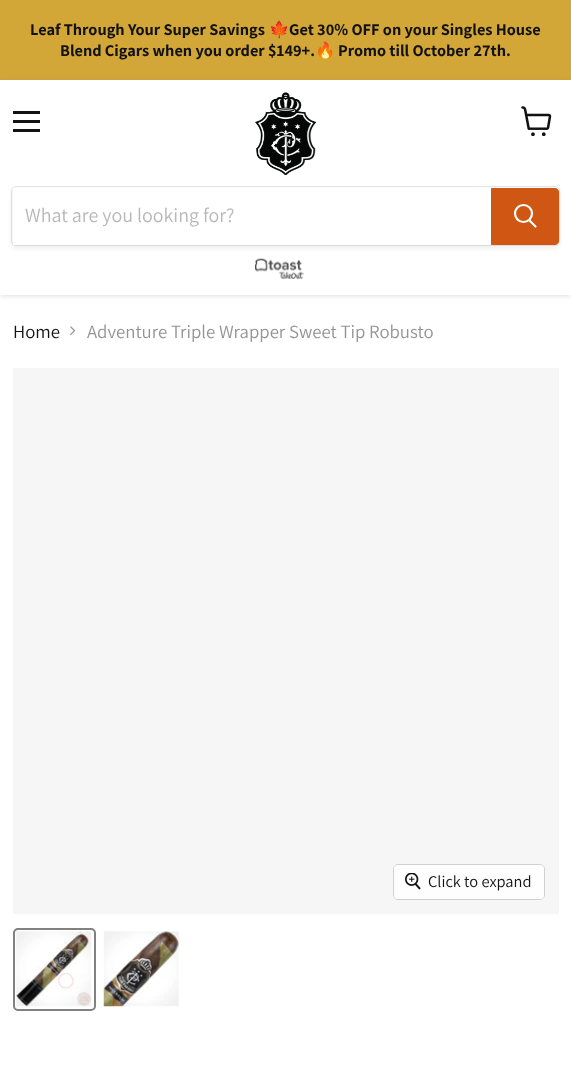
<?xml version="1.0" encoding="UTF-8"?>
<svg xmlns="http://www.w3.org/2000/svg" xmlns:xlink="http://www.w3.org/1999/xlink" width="571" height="1069">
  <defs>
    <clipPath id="clip1"><path d="M 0 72 h 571 v 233 h -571 z m 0 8 h 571 v 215 h -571 z" clip-rule="evenodd" /></clipPath>
  </defs>
  <rect width="100%" height="100%" fill="#ffffff" />
  <rect width="571" height="80" fill="#d2a637" />
  <g clip-path="url(#clip1)">
    <rect y="81" width="571" height="215" fill="#808080" fill-opacity="0.25" filter="blur(2.5px)" />
  </g>
  <rect x="13" y="111" width="27" height="3" fill="#121212" />
  <rect x="13" y="120" width="27" height="3" fill="#121212" />
  <rect x="13" y="129" width="27" height="3" fill="#121212" />
  <image x="521" y="106" width="31" height="30" xlink:href="image1.png" />
  <image x="255" y="92" width="62" height="83" xlink:href="image2.png" />
  <rect x="11" y="189" width="549" height="60" rx="5" fill="#808080" fill-opacity="0.11" filter="blur(2px)" />
  <rect x="11.5" y="186.5" width="548" height="59" rx="4.5" fill="none" stroke="#808080" stroke-opacity="0.2" />
  <rect x="13" y="188" width="478" height="57" fill="#ffffff" />
  <path d="M 491.5 188.5 h 63.5 c 2 0 3.5 1.5 3.5 3.5 v 49 c 0 2 -1.5 3.5 -3.5 3.5 h -63.5 z" fill="#d05613" stroke="#d05613" />
  <path d="M 535.5 226.5 l -6 -6" fill="none" stroke="#ffffff" stroke-width="2.2" stroke-linecap="round" />
  <circle cx="523.5" cy="213.5" r="8.5" fill="none" stroke="#ffffff" stroke-width="2.2" />
  <image x="255" y="258" width="49" height="21" xlink:href="image3.png" />
  <image x="70" y="326" width="6" height="10" xlink:href="image4.png" />
  <rect x="13" y="368" width="546" height="546" fill="#f6f6f6" />
  <rect x="393.5" y="864.5" width="151" height="35" rx="4.5" fill="none" stroke="#d1d1d1" />
  <rect x="394" y="865" width="150" height="34" rx="4" fill="#ffffff" fill-opacity="0.9" />
  <image x="405" y="873" width="16" height="17" xlink:href="image5.png" />
  <rect x="14" y="929" width="81" height="81" rx="4" fill="none" stroke="#818181" stroke-width="2" />
  <image x="16" y="931" width="76" height="76" xlink:href="image6.png" />
  <image x="103" y="931" width="76" height="76" xlink:href="image7.png" />
  <text x="30" y="35" style="font-family: Assistant; font-size: 16.4px; font-weight: bold; fill: #121212">Leaf Through Your Super Savings</text>
  <text x="269" y="35" style="font-family: Noto Color Emoji; font-size: 16.4px; font-weight: bold; fill: #121212">🍁</text>
  <text x="289" y="35" style="font-family: Assistant; font-size: 16.4px; font-weight: bold; fill: #121212">Get 30% OFF on your Singles House</text>
  <text x="60" y="56" style="font-family: Assistant; font-size: 16.4px; font-weight: bold; fill: #121212">Blend Cigars when you order $149+.</text>
  <text x="315" y="56" style="font-family: Noto Color Emoji; font-size: 16.4px; font-weight: bold; fill: #121212">🔥</text>
  <text x="338" y="56" style="font-family: Assistant; font-size: 16.4px; font-weight: bold; fill: #121212">Promo till October 27th.</text>
  <text x="25" y="222" style="font-family: Assistant; font-size: 20px; fill: #b8b8b8">What are you looking for?</text>
  <text x="13" y="338" style="font-family: Assistant; font-size: 18.75px; fill: #121212">Home</text>
  <text x="87" y="338" style="font-family: Assistant; font-size: 18.75px; fill: #949494">Adventure Triple Wrapper Sweet Tip Robusto</text>
  <text x="428" y="887" style="font-family: Assistant; font-size: 16.4px; fill: #121212">Click to expand</text>
</svg>
